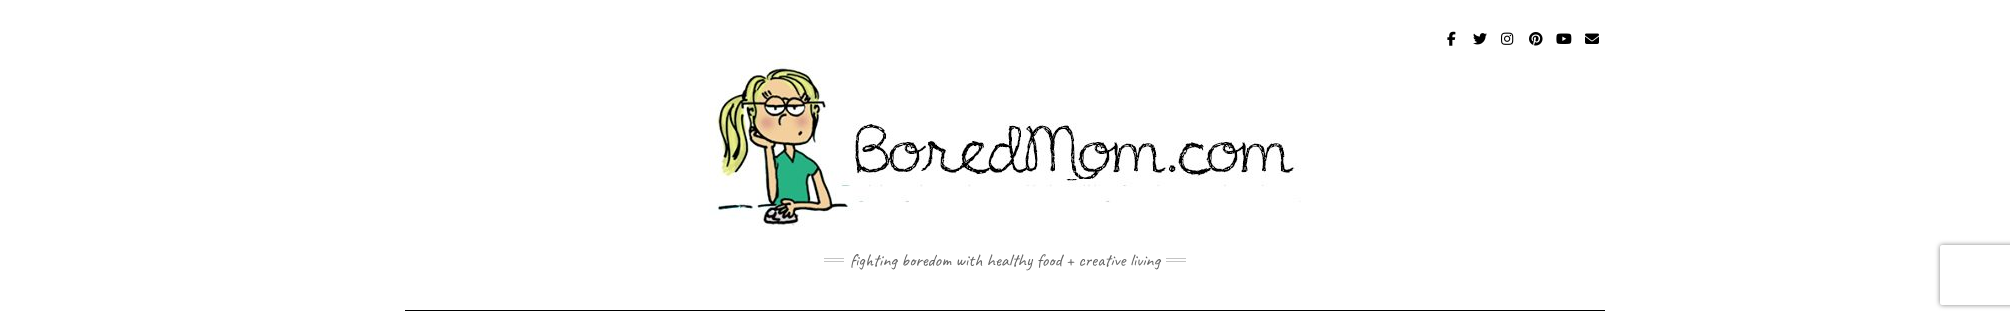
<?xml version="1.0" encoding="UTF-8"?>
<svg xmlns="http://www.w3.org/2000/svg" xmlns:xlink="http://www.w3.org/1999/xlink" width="2010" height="319">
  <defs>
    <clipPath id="clip1"><path d="M 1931 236 h 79 v 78 h -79 z m 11 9 h 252 c 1 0 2 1 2 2 v 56 c 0 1 -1 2 -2 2 h -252 c -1 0 -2 -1 -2 -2 v -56 c 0 -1 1 -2 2 -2 z" clip-rule="evenodd" /></clipPath>
  </defs>
  <rect width="100%" height="100%" fill="#ffffff" />
  <image x="1447" y="31" width="9" height="15" xlink:href="image1.png" />
  <image x="1473" y="33" width="14" height="12" xlink:href="image2.png" />
  <image x="1501" y="32" width="13" height="13" xlink:href="image3.png" />
  <image x="1529" y="32" width="14" height="14" xlink:href="image4.png" />
  <image x="1556" y="33" width="16" height="11" xlink:href="image5.png" />
  <image x="1585" y="33" width="14" height="11" xlink:href="image6.png" />
  <image x="709" y="59" width="592" height="168" xlink:href="image7.png" />
  <rect x="824" y="258" width="20" height="1" fill="#c4c4c4" />
  <rect x="824" y="261" width="20" height="1" fill="#c4c4c4" />
  <rect x="1166" y="258" width="20" height="1" fill="#c4c4c4" />
  <rect x="1166" y="261" width="20" height="1" fill="#c4c4c4" />
  <rect x="405" y="310" width="1200" height="1" fill="#000000" />
  <g clip-path="url(#clip1)">
    <rect x="1940" y="245" width="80" height="60" rx="2" fill="#808080" filter="blur(2.5px)" />
  </g>
  <text x="850" y="266" style="font-family: Caveat; font-size: 18px; fill: #646464">fighting boredom with healthy food + creative living</text>
</svg>
